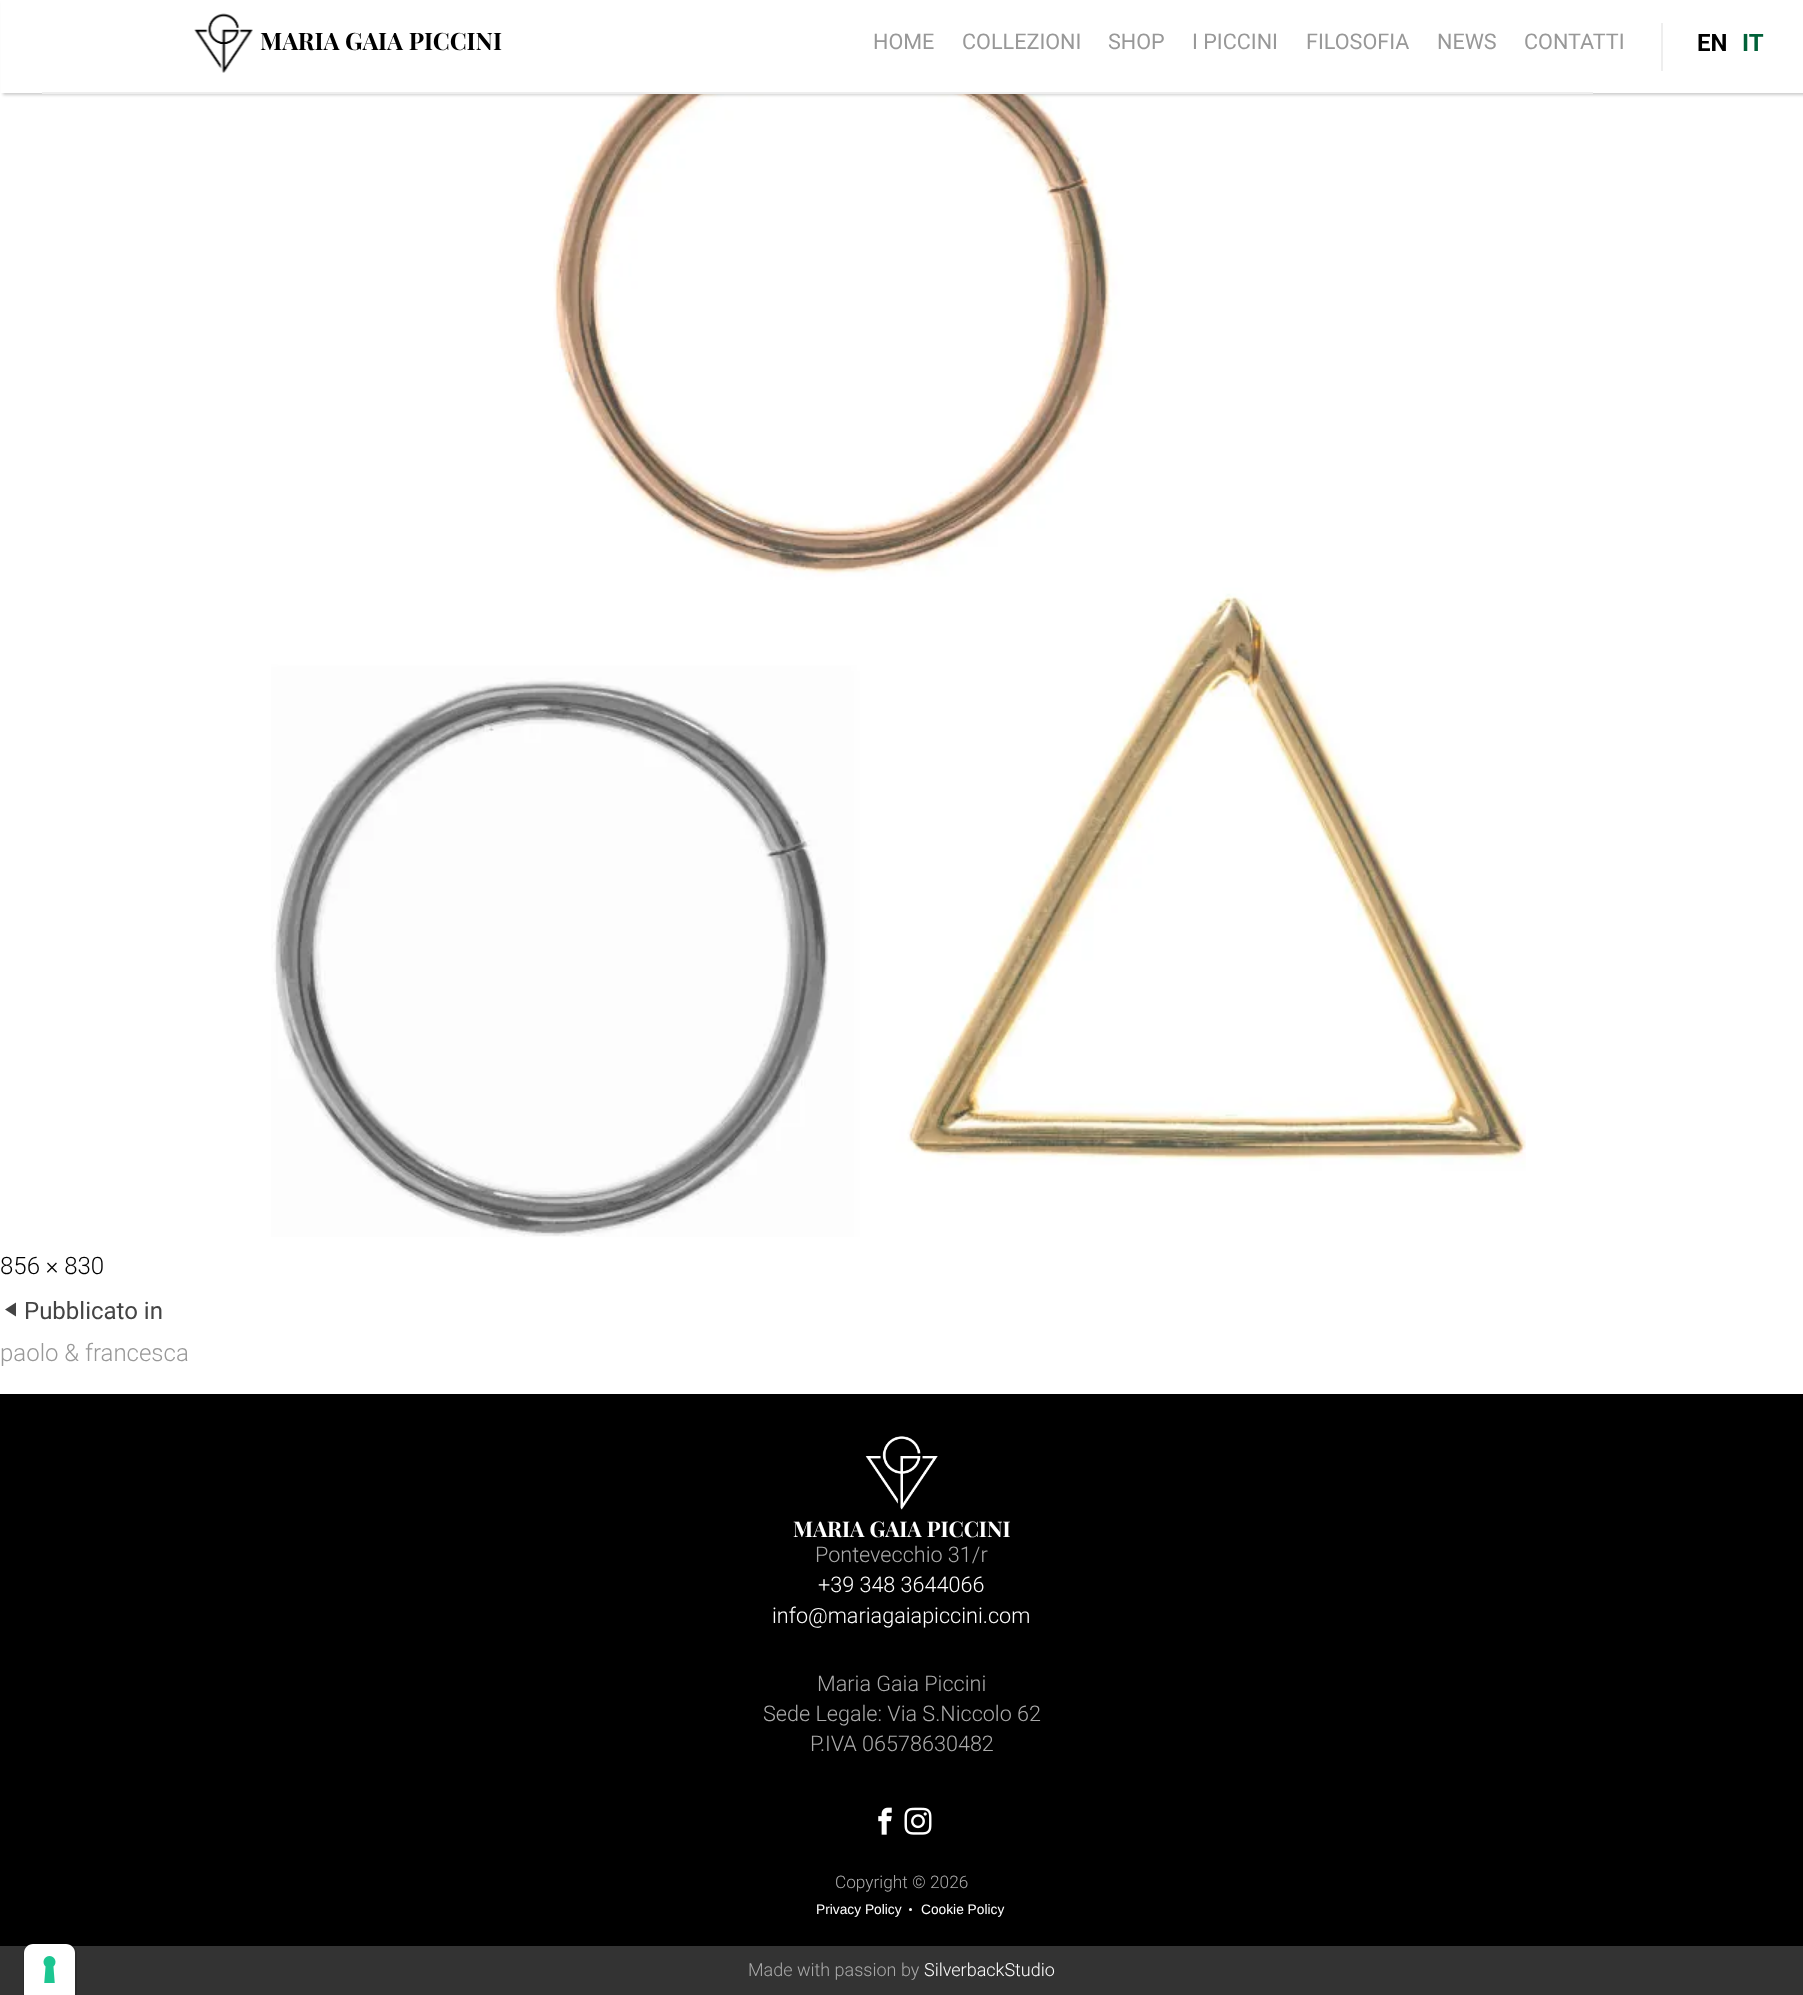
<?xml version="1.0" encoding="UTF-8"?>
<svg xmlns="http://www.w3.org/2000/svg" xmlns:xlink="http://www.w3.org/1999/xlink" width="1803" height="1995">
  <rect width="100%" height="100%" fill="#ffffff" />
  <image x="271" y="94" width="1255" height="1143" xlink:href="image2.png" />
  <rect x="3" y="2" width="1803" height="93" fill="#000000" fill-opacity="0.2" filter="blur(1.5px)" />
  <rect x="1" width="1802" height="93" fill="#ffffff" />
  <image x="194" y="13" width="59" height="60" xlink:href="image1.png" />
  <rect x="42" y="92" width="1551" height="2" fill="#eeeeee" />
  <rect x="1661" y="23" width="2" height="48" fill="#eeeeee" />
  <path d="M 16 1316.5 l -11 -7 l 11 -7 z" fill="#444444" />
  <rect y="1394" width="1803" height="552" fill="#000000" />
  <image x="865" y="1436" width="73" height="74" xlink:href="image3.png" />
  <image x="878" y="1807" width="14" height="28" xlink:href="image4.png" />
  <image x="904" y="1807" width="28" height="28" xlink:href="image5.png" />
  <circle cx="910.5" cy="1909.5" r="1.5" fill="#ffffff" />
  <rect y="1946" width="1803" height="49" fill="#333333" />
  <path d="M 34 1944 h 32 c 5.5 0 10 4.5 10 10 v 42 h -52 v -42 c 0 -5.5 4.5 -10 10 -10 z" fill="none" stroke="#000000" stroke-opacity="0.15" stroke-width="2" />
  <path d="M 33 1944 h 33 c 5 0 9 4 9 9 v 42 h -51 v -42 c 0 -5 4 -9 9 -9 z" fill="#ffffff" />
  <image x="43" y="1956" width="13" height="27" xlink:href="image6.png" />
  <text x="260" y="50" style="font-family: Playfair Display; font-size: 24px; font-weight: bold; fill: #000000">MARIA GAIA PICCINI</text>
  <text x="873" y="49" style="font-family: Roboto; font-size: 21.6px; fill: #989898">HOME</text>
  <text x="962" y="49" style="font-family: Roboto; font-size: 21.6px; fill: #989898">COLLEZIONI</text>
  <text x="1108" y="49" style="font-family: Roboto; font-size: 21.6px; fill: #989898">SHOP</text>
  <text x="1192" y="49" style="font-family: Roboto; font-size: 21.6px; fill: #989898">I PICCINI</text>
  <text x="1306" y="49" style="font-family: Roboto; font-size: 21.6px; fill: #989898">FILOSOFIA</text>
  <text x="1437" y="49" style="font-family: Roboto; font-size: 21.6px; fill: #989898">NEWS</text>
  <text x="1524" y="49" style="font-family: Roboto; font-size: 21.6px; fill: #989898">CONTATTI</text>
  <text x="1697" y="51" style="font-family: Roboto; font-size: 24px; font-weight: bold; fill: #000000">EN</text>
  <text x="1742" y="51" style="font-family: Roboto; font-size: 24px; font-weight: bold; fill: #006138">IT</text>
  <text x="0" y="1274" style="font-family: Roboto; font-size: 24px; font-weight: 300; fill: #000000">856 × 830</text>
  <text x="24" y="1319" style="font-family: Roboto; font-size: 24px; fill: #444444">Pubblicato in</text>
  <text x="0" y="1361" style="font-family: Roboto; font-size: 24px; font-weight: 300; fill: #989898">paolo &amp; francesca</text>
  <text x="793" y="1537" style="font-family: Playfair Display; font-size: 21.6px; font-weight: bold; fill: #ffffff">MARIA GAIA PICCINI</text>
  <text x="815" y="1562" style="font-family: Roboto; font-size: 21.6px; font-weight: 300; fill: #aaaaaa">Pontevecchio 31/r</text>
  <text x="818" y="1592" style="font-family: Roboto; font-size: 21.6px; font-weight: 300; fill: #ffffff">+39 348 3644066</text>
  <text x="772" y="1623" style="font-family: Roboto; font-size: 21.6px; font-weight: 300; fill: #ffffff">info@mariagaiapiccini.com</text>
  <text x="817" y="1691" style="font-family: Roboto; font-size: 21.6px; font-weight: 300; fill: #aaaaaa">Maria Gaia Piccini</text>
  <text x="763" y="1721" style="font-family: Roboto; font-size: 21.6px; font-weight: 300; fill: #aaaaaa">Sede Legale: Via S.Niccolo 62</text>
  <text x="810" y="1751" style="font-family: Roboto; font-size: 21.6px; font-weight: 300; fill: #aaaaaa">P.IVA 06578630482</text>
  <text x="835" y="1888" style="font-family: Roboto; font-size: 17.25px; font-weight: 300; fill: #aaaaaa">Copyright © 2026</text>
  <text x="816" y="1914" style="font-family: Liberation Sans; font-size: 13.75px; fill: #ffffff">Privacy Policy</text>
  <text x="921" y="1914" style="font-family: Liberation Sans; font-size: 13.75px; fill: #ffffff">Cookie Policy</text>
  <text x="748" y="1976" style="font-family: Roboto; font-size: 18px; font-weight: 300; fill: #aaaaaa">Made with passion by</text>
  <text x="924" y="1976" style="font-family: Roboto; font-size: 18px; font-weight: 300; fill: #ffffff">SilverbackStudio</text>
</svg>
